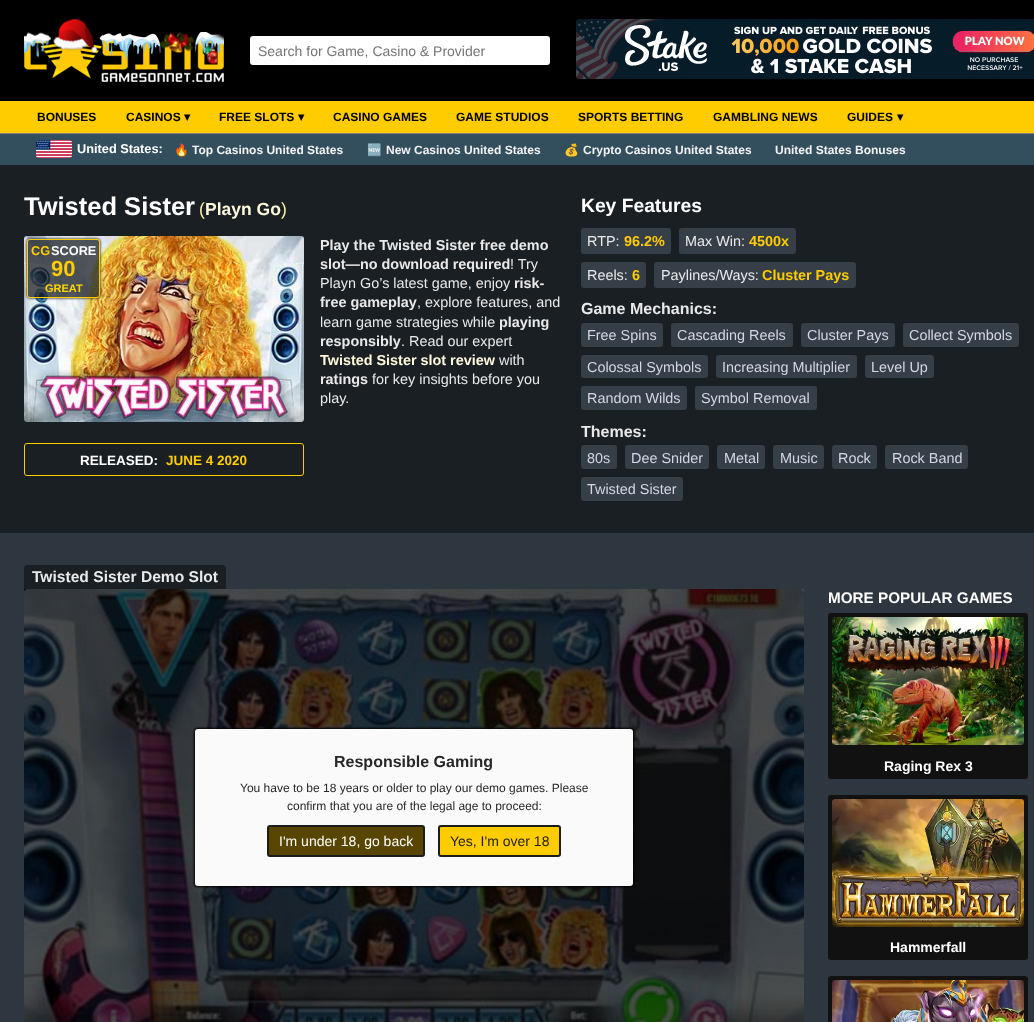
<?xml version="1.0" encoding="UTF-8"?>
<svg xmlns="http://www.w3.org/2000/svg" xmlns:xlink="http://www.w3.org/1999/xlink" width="1034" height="1022">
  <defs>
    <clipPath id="clip1"><path d="M 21 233 h 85 v 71 h -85 z m 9 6 h 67 c 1.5 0 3 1.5 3 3 v 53 c 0 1.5 -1.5 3 -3 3 h -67 c -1.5 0 -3 -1.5 -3 -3 v -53 c 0 -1.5 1.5 -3 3 -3 z" clip-rule="evenodd" /></clipPath>
  </defs>
  <rect width="100%" height="100%" fill="#000000" />
  <image x="24" y="19" width="200" height="63" xlink:href="image1.png" />
  <rect x="250" y="36" width="300" height="29" rx="3" fill="#ffffff" />
  <image x="576" y="19" width="458" height="60" xlink:href="image2.png" />
  <rect y="101" width="1034" height="32" fill="#ffcc00" />
  <rect y="134" width="1034" height="31" fill="#334e5d" />
  <rect y="133" width="1034" height="1" fill="#808080" />
  <image x="36" y="140" width="36" height="18" xlink:href="image3.png" />
  <rect y="165" width="1034" height="368" fill="#1a1f24" />
  <image x="24" y="236" width="280" height="186" xlink:href="image4.png" />
  <g clip-path="url(#clip1)">
    <rect x="27" y="239" width="73" height="59" rx="3" fill="#000000" filter="blur(1.5px)" />
  </g>
  <rect x="27.5" y="239.5" width="72" height="58" rx="2.5" fill="#1a1f24" fill-opacity="0.75" stroke="#ffcc00" />
  <rect x="24.5" y="443.5" width="279" height="32" rx="2.5" fill="none" stroke="#ffcc00" />
  <rect x="581" y="228" width="90" height="26" rx="3" fill="#363f48" />
  <rect x="679" y="228" width="117" height="26" rx="3" fill="#363f48" />
  <rect x="581" y="262" width="65" height="26" rx="3" fill="#363f48" />
  <rect x="654" y="262" width="202" height="26" rx="3" fill="#363f48" />
  <rect x="581" y="323" width="82" height="24" rx="3" fill="#363f48" />
  <rect x="671" y="323" width="122" height="24" rx="3" fill="#363f48" />
  <rect x="801" y="323" width="94" height="24" rx="3" fill="#363f48" />
  <rect x="903" y="323" width="116" height="24" rx="3" fill="#363f48" />
  <rect x="581" y="355" width="127" height="23" rx="3" fill="#363f48" />
  <rect x="716" y="355" width="141" height="23" rx="3" fill="#363f48" />
  <rect x="865" y="355" width="69" height="23" rx="3" fill="#363f48" />
  <rect x="581" y="386" width="106" height="24" rx="3" fill="#363f48" />
  <rect x="695" y="386" width="122" height="24" rx="3" fill="#363f48" />
  <rect x="581" y="445" width="36" height="24" rx="3" fill="#363f48" />
  <rect x="625" y="445" width="84" height="24" rx="3" fill="#363f48" />
  <rect x="717" y="445" width="48" height="24" rx="3" fill="#363f48" />
  <rect x="773" y="445" width="51" height="24" rx="3" fill="#363f48" />
  <rect x="832" y="445" width="45" height="24" rx="3" fill="#363f48" />
  <rect x="885" y="445" width="83" height="24" rx="3" fill="#363f48" />
  <rect x="581" y="477" width="102" height="24" rx="3" fill="#363f48" />
  <rect y="533" width="1034" height="489" fill="#2e373f" />
  <path d="M 27 565 h 196 c 1.5 0 3 1.5 3 3 v 21 h -202 v -21 c 0 -1.5 1.5 -3 3 -3 z" fill="#1a1f24" />
  <path d="M 24 589 h 777 c 1.5 0 3 1.5 3 3 v 430 c 0 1.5 -1.5 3 -3 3 h -774 c -1.5 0 -3 -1.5 -3 -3 z" fill="#000000" />
  <image x="24" y="589" width="780" height="433" xlink:href="image5.png" />
  <path d="M 24 589 h 777 c 1.5 0 3 1.5 3 3 v 430 c 0 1.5 -1.5 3 -3 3 h -774 c -1.5 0 -3 -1.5 -3 -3 z" fill="#000000" fill-opacity="0.7" />
  <rect x="194" y="728" width="440" height="159" rx="4" fill="#000000" filter="blur(1px)" />
  <rect x="195" y="729" width="438" height="157" rx="3" fill="#fafafa" />
  <rect x="268" y="826" width="156" height="30" rx="2" fill="#574500" stroke="#1c1c1c" stroke-width="2" />
  <rect x="439" y="826" width="121" height="30" rx="2" fill="#ffcc00" stroke="#1c1c1c" stroke-width="2" />
  <rect x="828" y="613" width="200" height="166" rx="3" fill="#111111" />
  <image x="832" y="617" width="192" height="128" xlink:href="image6.png" />
  <rect x="828" y="795" width="200" height="165" rx="3" fill="#111111" />
  <image x="832" y="799" width="192" height="128" xlink:href="image7.png" />
  <path d="M 831 976 h 194 c 1.5 0 3 1.5 3 3 v 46 h -200 v -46 c 0 -1.5 1.5 -3 3 -3 z" fill="#111111" />
  <image x="832" y="980" width="192" height="42" xlink:href="image8.png" />
  <text x="258" y="56" style="font-family: Liberation Sans; font-size: 14px; fill: #757575">Search for Game, Casino &amp; Provider</text>
  <text x="37" y="121" style="font-family: Liberation Sans; font-size: 12px; font-weight: bold; fill: #000000">BONUSES</text>
  <text x="126" y="121" style="font-family: Liberation Sans; font-size: 12px; font-weight: bold; fill: #000000">CASINOS</text>
  <text x="184" y="121" style="font-family: DejaVu Sans; font-size: 12px; font-weight: bold; fill: #000000">▾</text>
  <text x="219" y="121" style="font-family: Liberation Sans; font-size: 12px; font-weight: bold; fill: #000000">FREE SLOTS</text>
  <text x="298" y="121" style="font-family: DejaVu Sans; font-size: 12px; font-weight: bold; fill: #000000">▾</text>
  <text x="333" y="121" style="font-family: Liberation Sans; font-size: 12px; font-weight: bold; fill: #000000">CASINO GAMES</text>
  <text x="456" y="121" style="font-family: Liberation Sans; font-size: 12px; font-weight: bold; fill: #000000">GAME STUDIOS</text>
  <text x="578" y="121" style="font-family: Liberation Sans; font-size: 12px; font-weight: bold; fill: #000000">SPORTS BETTING</text>
  <text x="713" y="121" style="font-family: Liberation Sans; font-size: 12px; font-weight: bold; fill: #000000">GAMBLING NEWS</text>
  <text x="847" y="121" style="font-family: Liberation Sans; font-size: 12px; font-weight: bold; fill: #000000">GUIDES</text>
  <text x="897" y="121" style="font-family: DejaVu Sans; font-size: 12px; font-weight: bold; fill: #000000">▾</text>
  <text x="77" y="153" style="font-family: Liberation Sans; font-size: 12.75px; font-weight: bold; fill: #ffffff">United States:</text>
  <text x="174" y="154" style="font-family: Noto Color Emoji; font-size: 12px; font-weight: bold; fill: #f3f3f3">🔥</text>
  <text x="192" y="154" style="font-family: Liberation Sans; font-size: 12px; font-weight: bold; fill: #f3f3f3">Top Casinos United States</text>
  <text x="367" y="154" style="font-family: Noto Color Emoji; font-size: 12px; font-weight: bold; fill: #f3f3f3">🆕</text>
  <text x="386" y="154" style="font-family: Liberation Sans; font-size: 12px; font-weight: bold; fill: #f3f3f3">New Casinos United States</text>
  <text x="564" y="154" style="font-family: Noto Color Emoji; font-size: 12px; font-weight: bold; fill: #f3f3f3">💰</text>
  <text x="583" y="154" style="font-family: Liberation Sans; font-size: 12px; font-weight: bold; fill: #f3f3f3">Crypto Casinos United States</text>
  <text x="775" y="154" style="font-family: Liberation Sans; font-size: 12px; font-weight: bold; fill: #f3f3f3">United States Bonuses</text>
  <text x="24" y="215" style="font-family: Liberation Sans; font-size: 25.5px; font-weight: bold; fill: #ffffff">Twisted Sister</text>
  <text x="199" y="215" style="font-family: Liberation Sans; font-size: 17.5px; fill: #fff0a8">(</text>
  <text x="205" y="215" style="font-family: Liberation Sans; font-size: 17.5px; font-weight: bold; fill: #fff9dc">Playn Go</text>
  <text x="281" y="215" style="font-family: Liberation Sans; font-size: 17.5px; fill: #fff0a8">)</text>
  <text x="31" y="255" style="font-family: Liberation Sans; font-size: 12.75px; font-weight: bold; fill: #ffcc00">CG</text>
  <text x="51" y="255" style="font-family: Liberation Sans; font-size: 12.75px; font-weight: bold; fill: #ffffff">SCORE</text>
  <text x="51" y="276" style="font-family: Liberation Sans; font-size: 22px; font-weight: bold; fill: #ffcc00">90</text>
  <text x="45" y="292" style="font-family: Liberation Sans; font-size: 11px; font-weight: bold; fill: #ffd700">GREAT</text>
  <text x="320" y="250" style="font-family: Liberation Sans; font-size: 14.4px; font-weight: bold; fill: #e9e9e9">Play the Twisted Sister free demo</text>
  <text x="320" y="269" style="font-family: Liberation Sans; font-size: 14.4px; font-weight: bold; fill: #e9e9e9">slot—no download required</text>
  <text x="510" y="269" style="font-family: Liberation Sans; font-size: 14.4px; fill: #e9e9e9">! Try</text>
  <text x="320" y="288" style="font-family: Liberation Sans; font-size: 14.4px; fill: #e9e9e9">Playn Go’s latest game, enjoy</text>
  <text x="514" y="288" style="font-family: Liberation Sans; font-size: 14.4px; font-weight: bold; fill: #e9e9e9">risk-</text>
  <text x="320" y="307" style="font-family: Liberation Sans; font-size: 14.4px; font-weight: bold; fill: #e9e9e9">free gameplay</text>
  <text x="417" y="307" style="font-family: Liberation Sans; font-size: 14.4px; fill: #e9e9e9">, explore features, and</text>
  <text x="320" y="327" style="font-family: Liberation Sans; font-size: 14.4px; fill: #e9e9e9">learn game strategies while</text>
  <text x="499" y="327" style="font-family: Liberation Sans; font-size: 14.4px; font-weight: bold; fill: #e9e9e9">playing</text>
  <text x="320" y="346" style="font-family: Liberation Sans; font-size: 14.4px; font-weight: bold; fill: #e9e9e9">responsibly</text>
  <text x="401" y="346" style="font-family: Liberation Sans; font-size: 14.4px; fill: #e9e9e9">. Read our expert</text>
  <text x="320" y="365" style="font-family: Liberation Sans; font-size: 14.4px; font-weight: bold; fill: #fff9dc">Twisted Sister slot review</text>
  <text x="499" y="365" style="font-family: Liberation Sans; font-size: 14.4px; fill: #e9e9e9">with</text>
  <text x="320" y="384" style="font-family: Liberation Sans; font-size: 14.4px; font-weight: bold; fill: #e9e9e9">ratings</text>
  <text x="372" y="384" style="font-family: Liberation Sans; font-size: 14.4px; fill: #e9e9e9">for key insights before you</text>
  <text x="320" y="403" style="font-family: Liberation Sans; font-size: 14.4px; fill: #e9e9e9">play.</text>
  <text x="80" y="465" style="font-family: Liberation Sans; font-size: 13.5px; font-weight: bold; fill: #ffffff">RELEASED:</text>
  <text x="166" y="465" style="font-family: Liberation Sans; font-size: 13.5px; font-weight: bold; fill: #ffcc00">JUNE 4 2020</text>
  <text x="581" y="212" style="font-family: Liberation Sans; font-size: 19.25px; font-weight: bold; fill: #ffffff">Key Features</text>
  <text x="587" y="246" style="font-family: Liberation Sans; font-size: 14.4px; fill: #e9e9e9">RTP:</text>
  <text x="624" y="246" style="font-family: Liberation Sans; font-size: 14.4px; font-weight: bold; fill: #ffcc00">96.2%</text>
  <text x="685" y="246" style="font-family: Liberation Sans; font-size: 14.4px; fill: #e9e9e9">Max Win:</text>
  <text x="749" y="246" style="font-family: Liberation Sans; font-size: 14.4px; font-weight: bold; fill: #ffcc00">4500x</text>
  <text x="587" y="280" style="font-family: Liberation Sans; font-size: 14.4px; fill: #e9e9e9">Reels:</text>
  <text x="632" y="280" style="font-family: Liberation Sans; font-size: 14.4px; font-weight: bold; fill: #ffcc00">6</text>
  <text x="661" y="280" style="font-family: Liberation Sans; font-size: 14.4px; fill: #e9e9e9">Paylines/Ways:</text>
  <text x="762" y="280" style="font-family: Liberation Sans; font-size: 14.4px; font-weight: bold; fill: #ffcc00">Cluster Pays</text>
  <text x="581" y="314" style="font-family: Liberation Sans; font-size: 16px; font-weight: bold; fill: #e9e9e9">Game Mechanics:</text>
  <text x="587" y="340" style="font-family: Liberation Sans; font-size: 14.4px; fill: #d5d5e6">Free Spins</text>
  <text x="677" y="340" style="font-family: Liberation Sans; font-size: 14.4px; fill: #d5d5e6">Cascading Reels</text>
  <text x="807" y="340" style="font-family: Liberation Sans; font-size: 14.4px; fill: #d5d5e6">Cluster Pays</text>
  <text x="909" y="340" style="font-family: Liberation Sans; font-size: 14.4px; fill: #d5d5e6">Collect Symbols</text>
  <text x="587" y="372" style="font-family: Liberation Sans; font-size: 14.4px; fill: #d5d5e6">Colossal Symbols</text>
  <text x="722" y="372" style="font-family: Liberation Sans; font-size: 14.4px; fill: #d5d5e6">Increasing Multiplier</text>
  <text x="871" y="372" style="font-family: Liberation Sans; font-size: 14.4px; fill: #d5d5e6">Level Up</text>
  <text x="587" y="403" style="font-family: Liberation Sans; font-size: 14.4px; fill: #d5d5e6">Random Wilds</text>
  <text x="701" y="403" style="font-family: Liberation Sans; font-size: 14.4px; fill: #d5d5e6">Symbol Removal</text>
  <text x="581" y="437" style="font-family: Liberation Sans; font-size: 16px; font-weight: bold; fill: #e9e9e9">Themes:</text>
  <text x="587" y="463" style="font-family: Liberation Sans; font-size: 14.4px; fill: #d5d5e6">80s</text>
  <text x="631" y="463" style="font-family: Liberation Sans; font-size: 14.4px; fill: #d5d5e6">Dee Snider</text>
  <text x="724" y="463" style="font-family: Liberation Sans; font-size: 14.4px; fill: #d5d5e6">Metal</text>
  <text x="780" y="463" style="font-family: Liberation Sans; font-size: 14.4px; fill: #d5d5e6">Music</text>
  <text x="838" y="463" style="font-family: Liberation Sans; font-size: 14.4px; fill: #d5d5e6">Rock</text>
  <text x="892" y="463" style="font-family: Liberation Sans; font-size: 14.4px; fill: #d5d5e6">Rock Band</text>
  <text x="587" y="494" style="font-family: Liberation Sans; font-size: 14.4px; fill: #d5d5e6">Twisted Sister</text>
  <text x="32" y="582" style="font-family: Liberation Sans; font-size: 15.6px; font-weight: bold; fill: #e9e9e9">Twisted Sister Demo Slot</text>
  <text x="334" y="767" style="font-family: Liberation Sans; font-size: 16px; font-weight: bold; fill: #272727">Responsible Gaming</text>
  <text x="240" y="792" style="font-family: Liberation Sans; font-size: 12px; fill: #272727">You have to be 18 years or older to play our demo games. Please</text>
  <text x="287" y="810" style="font-family: Liberation Sans; font-size: 12px; fill: #272727">confirm that you are of the legal age to proceed:</text>
  <text x="279" y="846" style="font-family: Liberation Sans; font-size: 14px; fill: #ffffff">I'm under 18, go back</text>
  <text x="450" y="846" style="font-family: Liberation Sans; font-size: 14px; fill: #1c1c1c">Yes, I'm over 18</text>
  <text x="828" y="603" style="font-family: Liberation Sans; font-size: 15.25px; font-weight: bold; fill: #ffffff">MORE POPULAR GAMES</text>
  <text x="884" y="771" style="font-family: Liberation Sans; font-size: 14px; font-weight: bold; fill: #ffffff">Raging Rex 3</text>
  <text x="890" y="952" style="font-family: Liberation Sans; font-size: 14px; font-weight: bold; fill: #ffffff">Hammerfall</text>
</svg>
